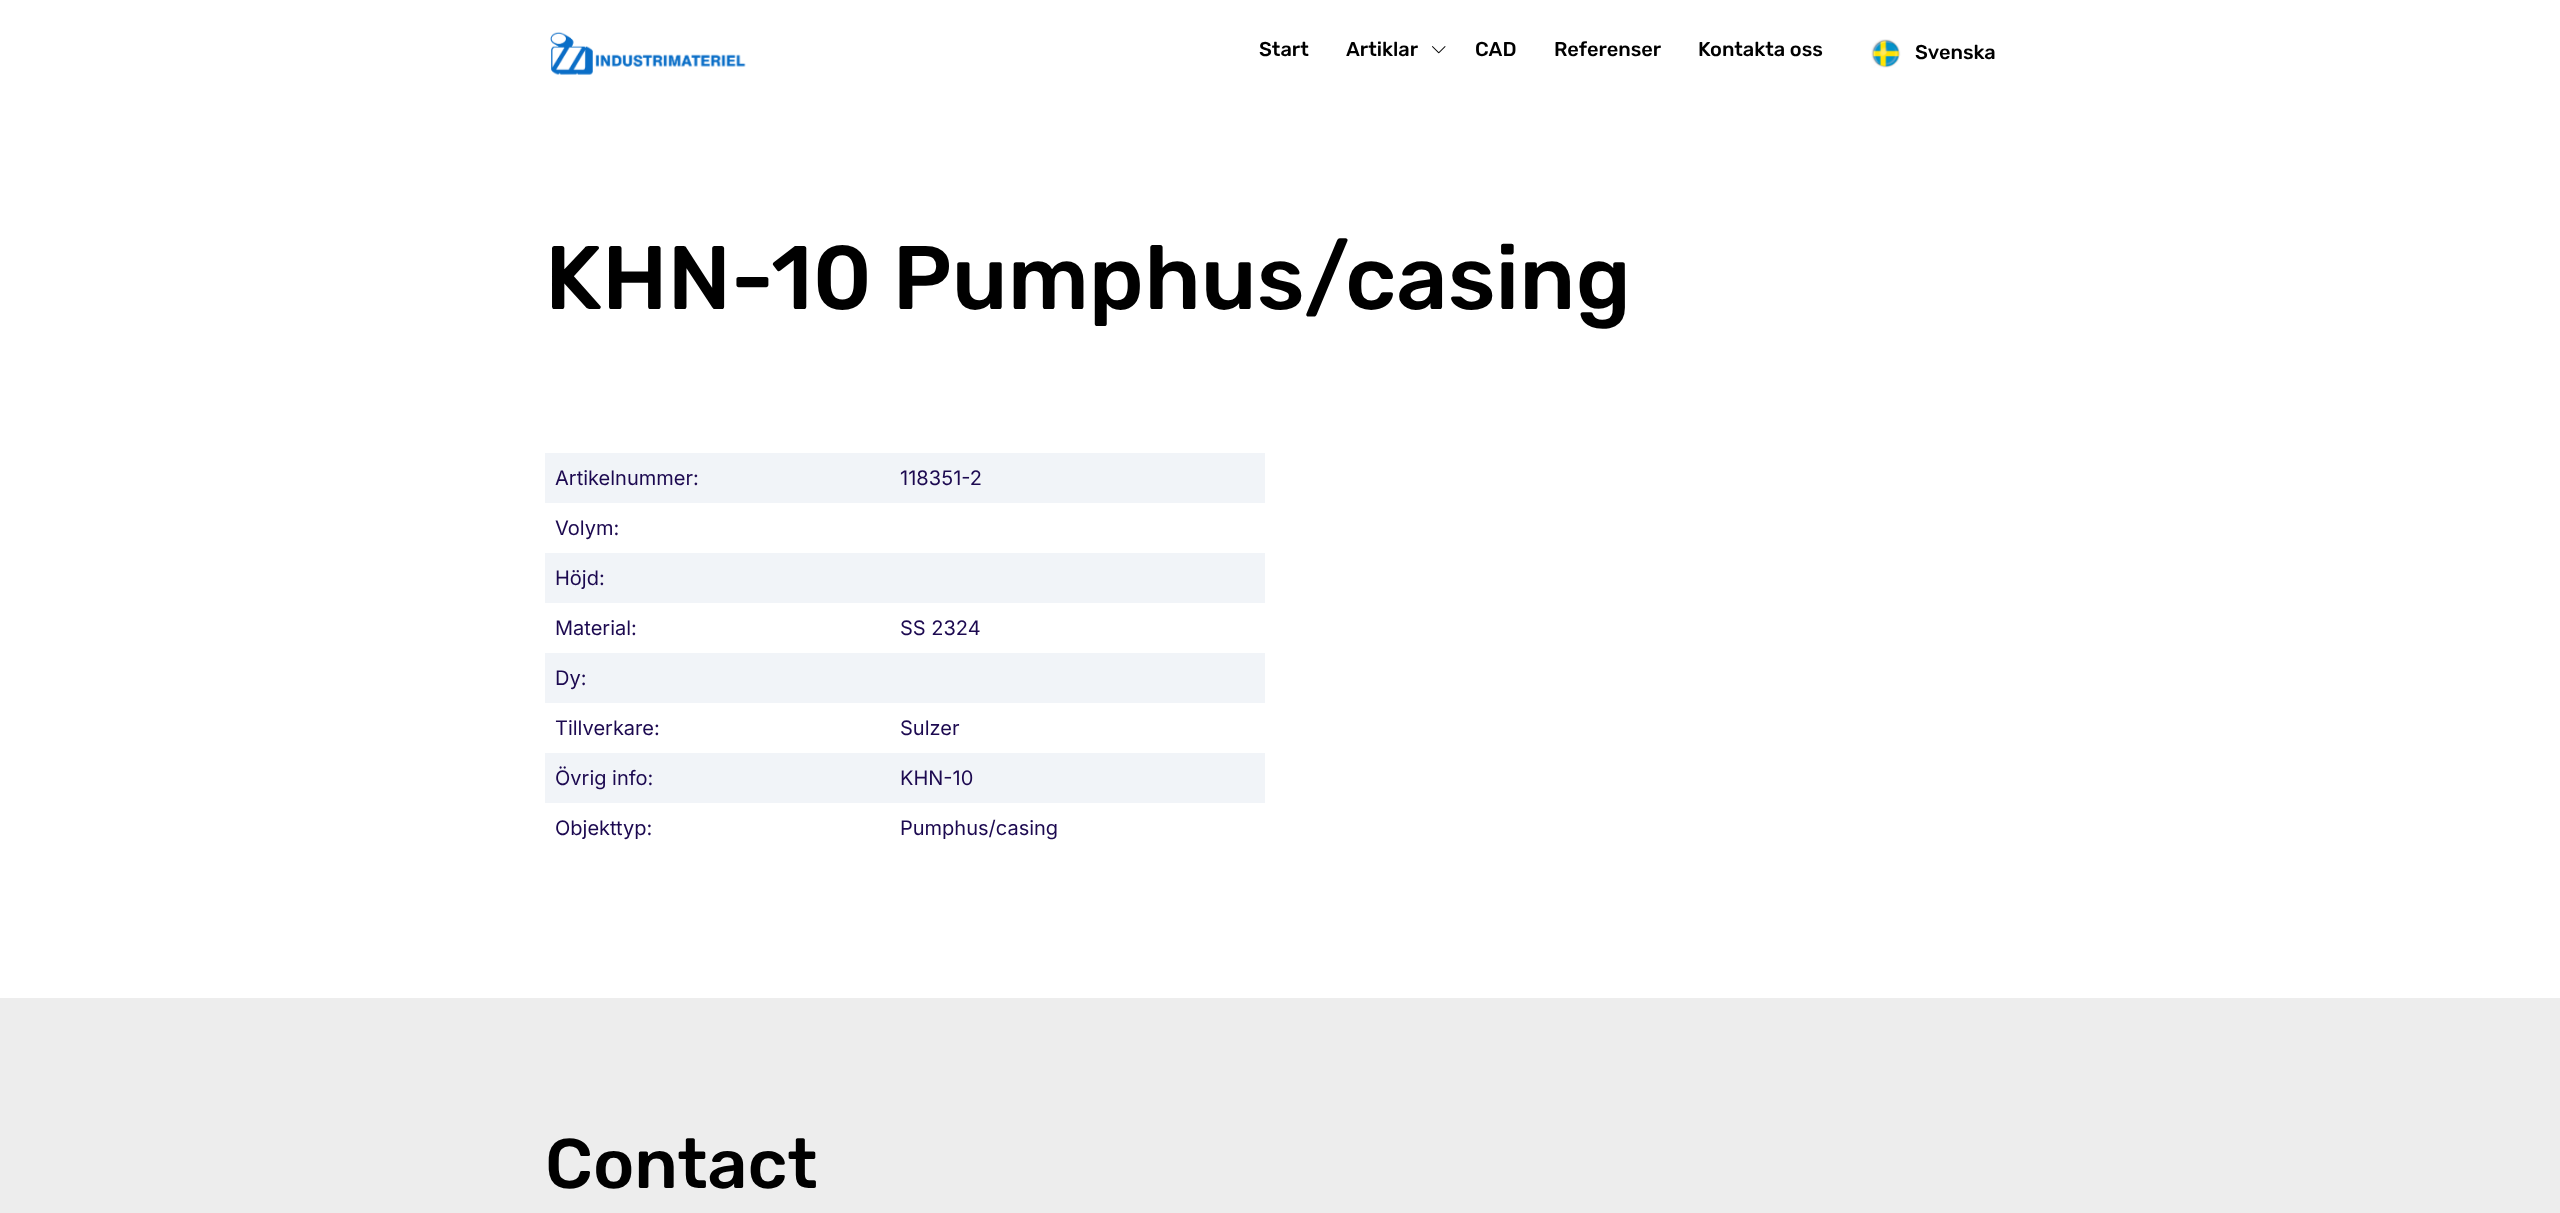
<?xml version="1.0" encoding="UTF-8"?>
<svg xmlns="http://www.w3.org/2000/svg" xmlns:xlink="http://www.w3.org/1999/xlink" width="2560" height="1213">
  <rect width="100%" height="100%" fill="#ffffff" />
  <image x="550" y="32" width="196" height="43" xlink:href="image1.png" />
  <image x="1432" y="46" width="14" height="8" xlink:href="image2.png" />
  <image x="1871" y="39" width="30" height="29" xlink:href="image3.png" />
  <rect x="545" y="453" width="720" height="50" fill="#f1f4f8" />
  <rect x="545" y="553" width="720" height="50" fill="#f1f4f8" />
  <rect x="545" y="653" width="720" height="50" fill="#f1f4f8" />
  <rect x="545" y="753" width="720" height="50" fill="#f1f4f8" />
  <rect y="998" width="2560" height="215" fill="#ededed" />
  <text x="1259" y="56" style="font-family: Rubik; font-size: 20px; font-weight: 300; fill: #000000">Start</text>
  <text x="1346" y="56" style="font-family: Rubik; font-size: 20px; font-weight: 300; fill: #000000">Artiklar</text>
  <text x="1475" y="56" style="font-family: Rubik; font-size: 20px; font-weight: 300; fill: #000000">CAD</text>
  <text x="1554" y="56" style="font-family: Rubik; font-size: 20px; font-weight: 300; fill: #000000">Referenser</text>
  <text x="1698" y="56" style="font-family: Rubik; font-size: 20px; font-weight: 300; fill: #000000">Kontakta oss</text>
  <text x="1915" y="59" style="font-family: Rubik; font-size: 20px; font-weight: 300; fill: #000000">Svenska</text>
  <text x="545" y="309" style="font-family: Rubik; font-size: 90px; font-weight: 300; fill: #000000">KHN-10 Pumphus/casing</text>
  <text x="555" y="485" style="font-family: Inter; font-size: 20px; fill: #1c0950">Artikelnummer:</text>
  <text x="900" y="485" style="font-family: Inter; font-size: 20px; fill: #1c0950">118351-2</text>
  <text x="555" y="535" style="font-family: Inter; font-size: 20px; fill: #1c0950">Volym:</text>
  <text x="555" y="585" style="font-family: Inter; font-size: 20px; fill: #1c0950">Höjd:</text>
  <text x="555" y="635" style="font-family: Inter; font-size: 20px; fill: #1c0950">Material:</text>
  <text x="900" y="635" style="font-family: Inter; font-size: 20px; fill: #1c0950">SS 2324</text>
  <text x="555" y="685" style="font-family: Inter; font-size: 20px; fill: #1c0950">Dy:</text>
  <text x="555" y="735" style="font-family: Inter; font-size: 20px; fill: #1c0950">Tillverkare:</text>
  <text x="900" y="735" style="font-family: Inter; font-size: 20px; fill: #1c0950">Sulzer</text>
  <text x="555" y="785" style="font-family: Inter; font-size: 20px; fill: #1c0950">Övrig info:</text>
  <text x="900" y="785" style="font-family: Inter; font-size: 20px; fill: #1c0950">KHN-10</text>
  <text x="555" y="835" style="font-family: Inter; font-size: 20px; fill: #1c0950">Objekttyp:</text>
  <text x="900" y="835" style="font-family: Inter; font-size: 20px; fill: #1c0950">Pumphus/casing</text>
  <text x="545" y="1188" style="font-family: Rubik; font-size: 70px; font-weight: 300; fill: #000000">Contact</text>
</svg>
